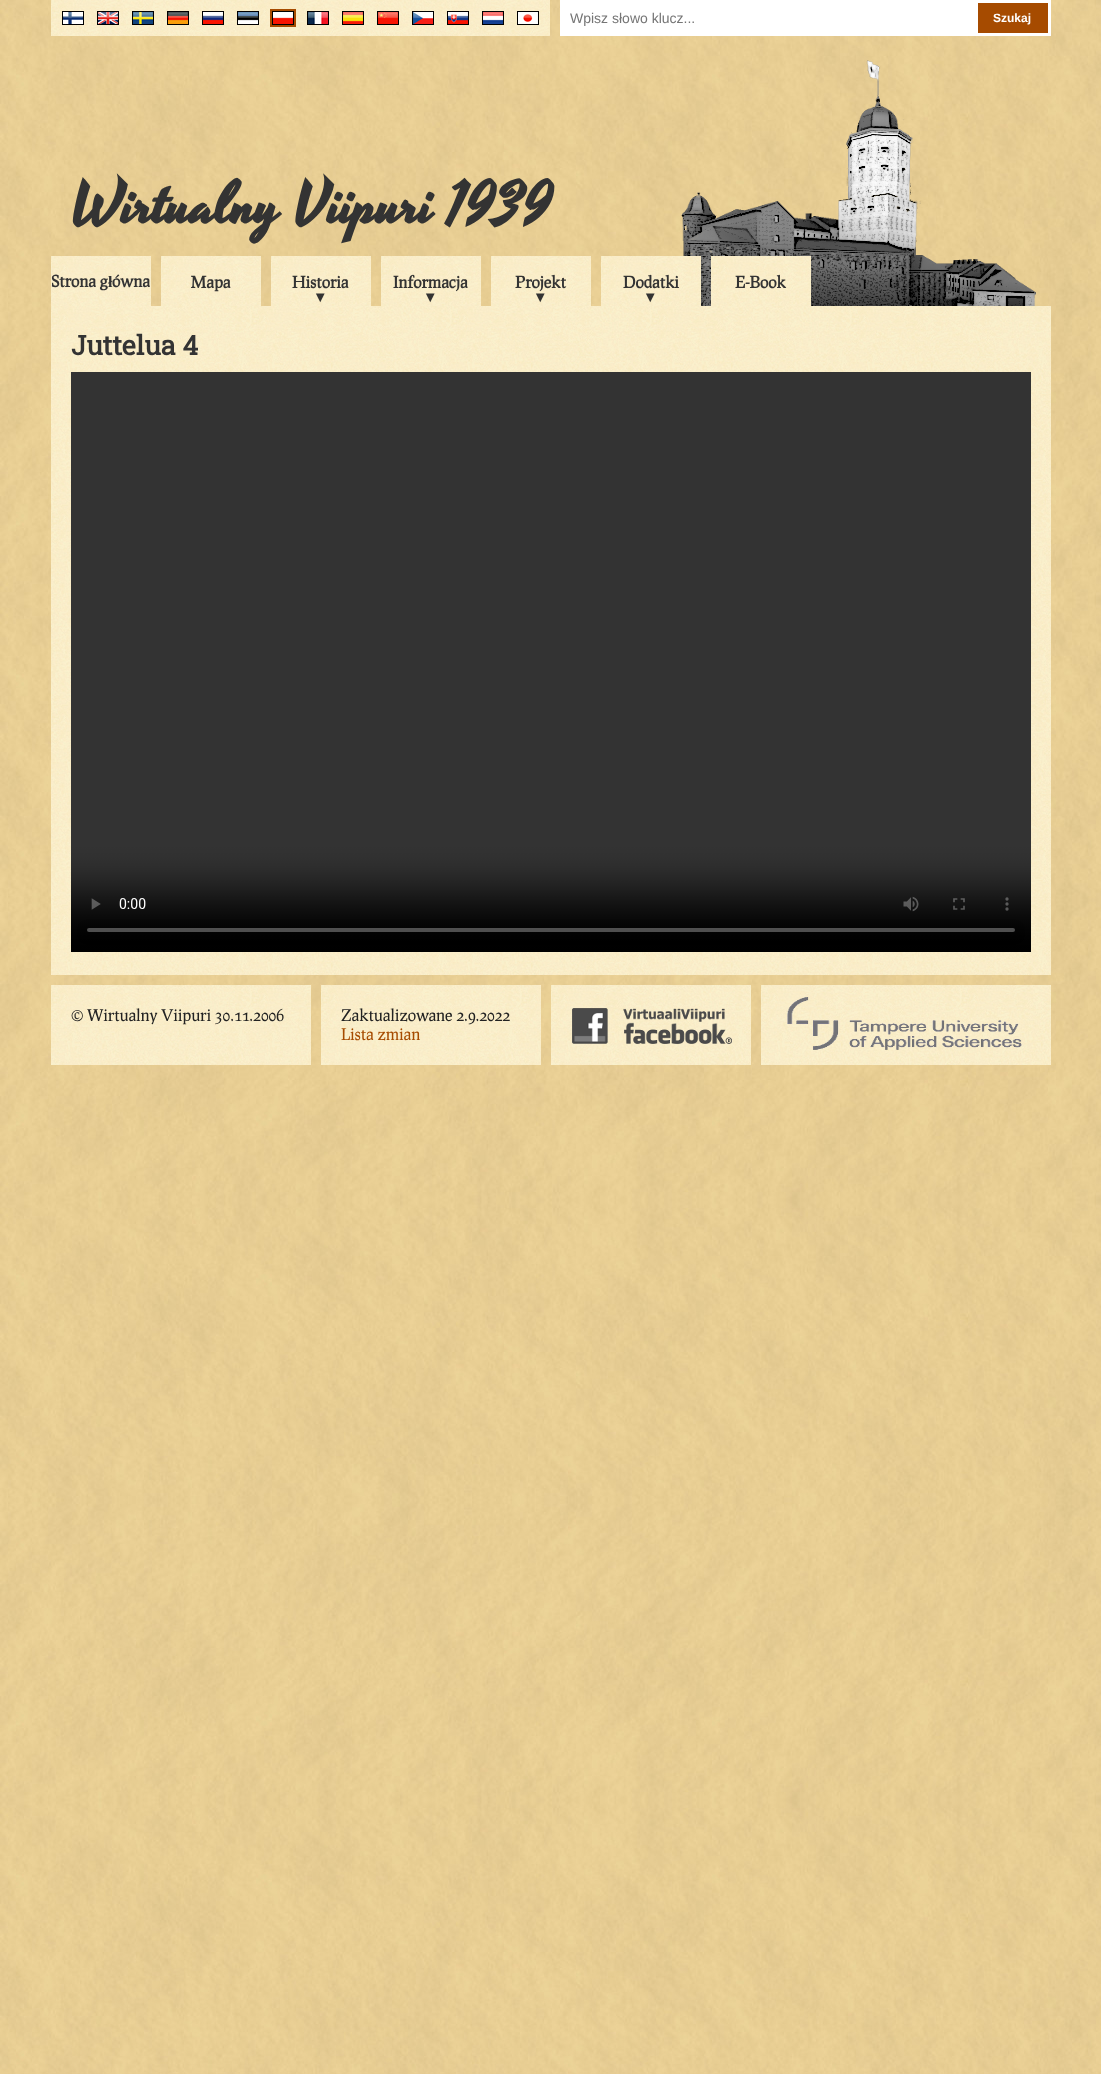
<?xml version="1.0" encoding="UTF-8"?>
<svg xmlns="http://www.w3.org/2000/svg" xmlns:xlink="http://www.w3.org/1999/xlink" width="1101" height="2074">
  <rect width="100%" height="100%" fill="#ffffff" />
  <image x="0" y="0" width="1101" height="2074" xlink:href="image1.png" />
  <image x="51" y="0" width="499" height="36" xlink:href="image2.png" />
  <rect x="62" y="11" width="22" height="14" fill="#000000" />
  <image x="63" y="12" width="20" height="12" xlink:href="image3.png" />
  <rect x="97" y="11" width="22" height="14" fill="#000000" />
  <image x="98" y="12" width="20" height="12" xlink:href="image4.png" />
  <rect x="132" y="11" width="22" height="14" fill="#000000" />
  <image x="133" y="12" width="20" height="12" xlink:href="image5.png" />
  <rect x="167" y="11" width="22" height="14" fill="#000000" />
  <image x="168" y="12" width="20" height="12" xlink:href="image6.png" />
  <rect x="202" y="11" width="22" height="14" fill="#000000" />
  <image x="203" y="12" width="20" height="12" xlink:href="image7.png" />
  <rect x="237" y="11" width="22" height="14" fill="#000000" />
  <image x="238" y="12" width="20" height="12" xlink:href="image8.png" />
  <rect x="271" y="10" width="24" height="16" fill="#000000" stroke="#a64b00" stroke-width="2" />
  <image x="273" y="12" width="20" height="12" xlink:href="image9.png" />
  <rect x="307" y="11" width="22" height="14" fill="#000000" />
  <image x="308" y="12" width="20" height="12" xlink:href="image10.png" />
  <rect x="342" y="11" width="22" height="14" fill="#000000" />
  <image x="343" y="12" width="20" height="12" xlink:href="image11.png" />
  <rect x="377" y="11" width="22" height="14" fill="#000000" />
  <image x="378" y="12" width="20" height="12" xlink:href="image12.png" />
  <rect x="412" y="11" width="22" height="14" fill="#000000" />
  <image x="413" y="12" width="20" height="12" xlink:href="image13.png" />
  <rect x="447" y="11" width="22" height="14" fill="#000000" />
  <image x="448" y="12" width="20" height="12" xlink:href="image14.png" />
  <rect x="482" y="11" width="22" height="14" fill="#000000" />
  <image x="483" y="12" width="20" height="12" xlink:href="image15.png" />
  <rect x="517" y="11" width="22" height="14" fill="#000000" />
  <image x="518" y="12" width="20" height="12" xlink:href="image16.png" />
  <rect x="560" width="491" height="36" fill="#ffffff" />
  <rect x="978" y="3" width="70" height="30" fill="#a64b00" />
  <image x="681" y="60" width="355" height="246" xlink:href="image17.png" />
  <image x="51" y="256" width="100" height="50" xlink:href="image18.png" />
  <image x="161" y="256" width="100" height="50" xlink:href="image18.png" />
  <image x="271" y="256" width="100" height="50" xlink:href="image18.png" />
  <image x="381" y="256" width="100" height="50" xlink:href="image18.png" />
  <image x="491" y="256" width="100" height="50" xlink:href="image18.png" />
  <image x="601" y="256" width="100" height="50" xlink:href="image18.png" />
  <image x="711" y="256" width="100" height="50" xlink:href="image18.png" />
  <image x="51" y="306" width="1000" height="669" xlink:href="image19.png" />
  <image x="71" y="372" width="960" height="580" xlink:href="image20.png" />
  <image x="51" y="985" width="260" height="80" xlink:href="image21.png" />
  <image x="321" y="985" width="220" height="80" xlink:href="image22.png" />
  <image x="551" y="985" width="200" height="80" xlink:href="image23.png" />
  <image x="572" y="1008" width="160" height="36" xlink:href="image24.png" />
  <image x="761" y="985" width="290" height="80" xlink:href="image25.png" />
  <image x="787" y="997" width="235" height="53" xlink:href="image26.png" />
  <text x="570" y="23" style="font-family: Liberation Sans; font-size: 14px; fill: #757575">Wpisz słowo klucz...</text>
  <text x="993" y="22" style="font-family: Liberation Sans; font-size: 12px; font-weight: bold; fill: #ffffff">Szukaj</text>
  <text x="71" y="222" style="font-family: Yesteryear; font-size: 60px; font-weight: bold; fill: #333333">Wirtualny Viipuri 1939</text>
  <text x="51" y="287" style="font-family: Prociono; font-size: 16px; font-weight: bold; fill: #333333">Strona g</text>
  <text x="108" y="287" style="font-family: Liberation Serif; font-size: 16px; font-weight: bold; fill: #333333">ł</text>
  <text x="112" y="287" style="font-family: Prociono; font-size: 16px; font-weight: bold; fill: #333333">ówna</text>
  <text x="191" y="288" style="font-family: Prociono; font-size: 16px; font-weight: bold; fill: #333333">Mapa</text>
  <text x="292" y="288" style="font-family: Prociono; font-size: 16px; font-weight: bold; fill: #333333">Historia</text>
  <text x="316" y="302" style="font-family: DejaVu Sans; font-size: 16px; font-weight: bold; fill: #333333">▾</text>
  <text x="393" y="288" style="font-family: Prociono; font-size: 16px; font-weight: bold; fill: #333333">Informacja</text>
  <text x="426" y="302" style="font-family: DejaVu Sans; font-size: 16px; font-weight: bold; fill: #333333">▾</text>
  <text x="515" y="288" style="font-family: Prociono; font-size: 16px; font-weight: bold; fill: #333333">Projekt</text>
  <text x="536" y="302" style="font-family: DejaVu Sans; font-size: 16px; font-weight: bold; fill: #333333">▾</text>
  <text x="623" y="288" style="font-family: Prociono; font-size: 16px; font-weight: bold; fill: #333333">Dodatki</text>
  <text x="646" y="302" style="font-family: DejaVu Sans; font-size: 16px; font-weight: bold; fill: #333333">▾</text>
  <text x="735" y="288" style="font-family: Prociono; font-size: 16px; font-weight: bold; fill: #333333">E-Book</text>
  <text x="71" y="355" style="font-family: Roboto Slab; font-size: 27px; font-weight: bold; fill: #333333">Juttelua 4</text>
  <text x="71" y="1021" style="font-family: Prociono; font-size: 16px; fill: #222222">© Wirtualny Viipuri 30.11.2006</text>
  <text x="341" y="1021" style="font-family: Prociono; font-size: 16px; fill: #222222">Zaktualizowane 2.9.2022</text>
  <text x="341" y="1040" style="font-family: Prociono; font-size: 16px; fill: #a64b00">Lista zmian</text>
</svg>
